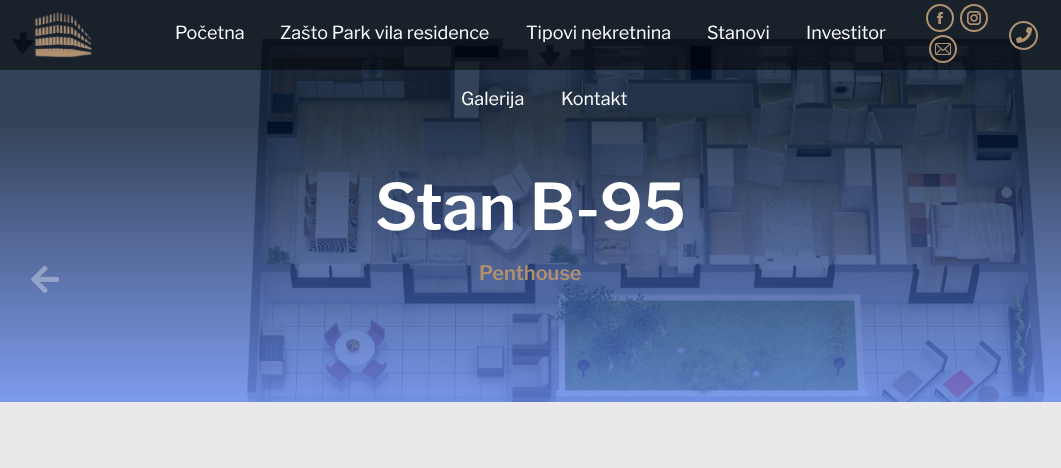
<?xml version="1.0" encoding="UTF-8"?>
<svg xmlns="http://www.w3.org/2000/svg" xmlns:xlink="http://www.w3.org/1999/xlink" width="1061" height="468">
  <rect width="100%" height="100%" fill="#ffffff" />
  <image x="0" y="0" width="1061" height="402" xlink:href="image6.png" />
  <rect width="1061" height="70" fill="#000000" fill-opacity="0.5" />
  <image x="34" y="12" width="58" height="46" xlink:href="image1.png" />
  <circle cx="940" cy="18" r="13" fill="none" stroke="#af916f" stroke-width="2" />
  <image x="937" y="12" width="6" height="12" xlink:href="image2.png" />
  <circle cx="974" cy="18" r="13" fill="none" stroke="#af916f" stroke-width="2" />
  <image x="967" y="11" width="14" height="14" xlink:href="image3.png" />
  <circle cx="943" cy="49" r="13" fill="none" stroke="#af916f" stroke-width="2" />
  <image x="935" y="43" width="16" height="12" xlink:href="image4.png" />
  <circle cx="1023.5" cy="35.5" r="13.5" fill="none" stroke="#af916f" stroke-width="2" />
  <image x="1016" y="27" width="16" height="16" xlink:href="image5.png" />
  <image x="31" y="265" width="28" height="28" xlink:href="image7.png" />
  <rect y="402" width="1061" height="66" fill="#e9e9e9" />
  <text x="175" y="39" style="font-family: Libre Franklin; font-size: 18px; fill: #ffffff">Početna</text>
  <text x="280" y="39" style="font-family: Libre Franklin; font-size: 18px; fill: #ffffff">Zašto Park vila residence</text>
  <text x="526" y="39" style="font-family: Libre Franklin; font-size: 18px; fill: #ffffff">Tipovi nekretnina</text>
  <text x="707" y="39" style="font-family: Libre Franklin; font-size: 18px; fill: #ffffff">Stanovi</text>
  <text x="806" y="39" style="font-family: Libre Franklin; font-size: 18px; fill: #ffffff">Investitor</text>
  <text x="461" y="105" style="font-family: Libre Franklin; font-size: 18px; fill: #ffffff">Galerija</text>
  <text x="561" y="105" style="font-family: Libre Franklin; font-size: 18px; fill: #ffffff">Kontakt</text>
  <text x="375" y="230" style="font-family: Libre Franklin; font-size: 64px; font-weight: 600; fill: #ffffff">Stan B-95</text>
  <text x="479" y="280" style="font-family: Libre Franklin; font-size: 20px; font-weight: 600; fill: #af916f">Penthouse</text>
</svg>
